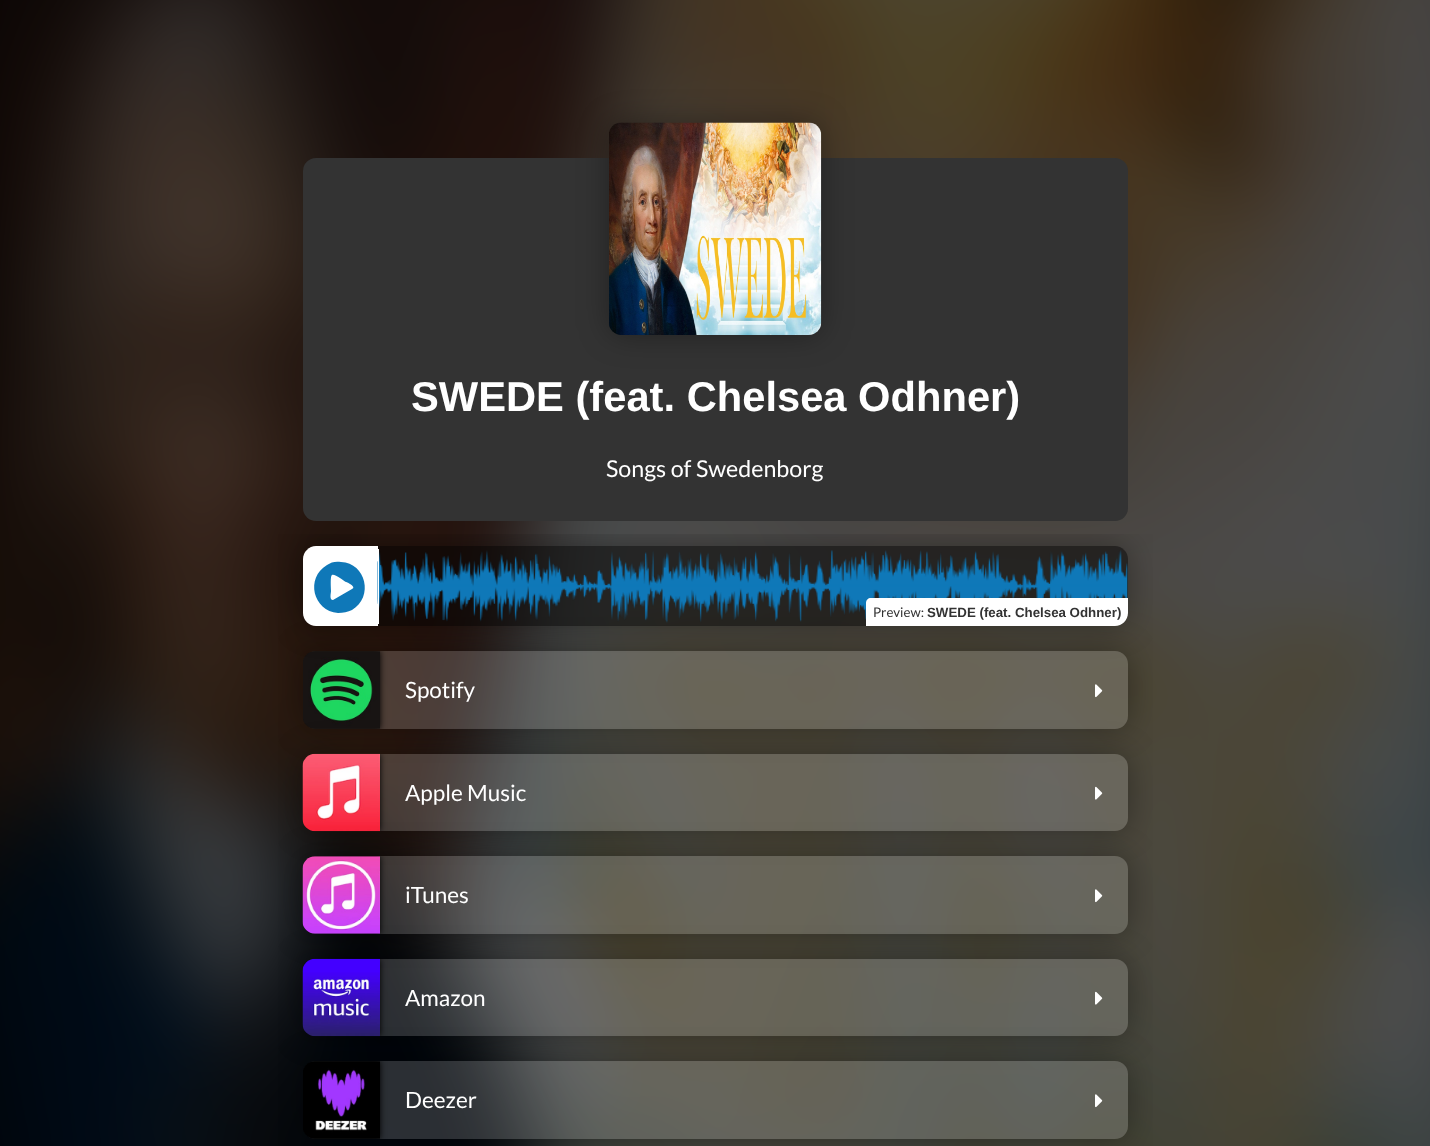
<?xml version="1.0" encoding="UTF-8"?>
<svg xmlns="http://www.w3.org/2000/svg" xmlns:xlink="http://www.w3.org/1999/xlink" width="1430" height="1146">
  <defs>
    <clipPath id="clip1"><rect x="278" y="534" width="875" height="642" /></clipPath>
    <clipPath id="clip2"><path d="M 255 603 h 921 v 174 h -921 z m 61 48 h 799 c 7 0 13 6 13 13 v 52 c 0 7 -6 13 -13 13 h -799 c -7 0 -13 -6 -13 -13 v -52 c 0 -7 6 -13 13 -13 z" clip-rule="evenodd" /></clipPath>
    <clipPath id="clip3"><rect x="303" y="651" width="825" height="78" rx="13" /></clipPath>
    <clipPath id="clip4"><path d="M 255 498 h 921 v 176 h -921 z m 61 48 h 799 c 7 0 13 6 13 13 v 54 c 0 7 -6 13 -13 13 h -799 c -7 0 -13 -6 -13 -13 v -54 c 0 -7 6 -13 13 -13 z" clip-rule="evenodd" /></clipPath>
    <clipPath id="clip5"><path d="M 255 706 h 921 v 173 h -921 z m 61 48 h 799 c 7 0 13 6 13 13 v 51 c 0 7 -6 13 -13 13 h -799 c -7 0 -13 -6 -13 -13 v -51 c 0 -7 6 -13 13 -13 z" clip-rule="evenodd" /></clipPath>
    <clipPath id="clip6"><rect x="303" y="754" width="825" height="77" rx="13" /></clipPath>
    <clipPath id="clip7"><path d="M 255 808 h 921 v 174 h -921 z m 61 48 h 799 c 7 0 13 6 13 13 v 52 c 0 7 -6 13 -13 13 h -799 c -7 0 -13 -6 -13 -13 v -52 c 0 -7 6 -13 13 -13 z" clip-rule="evenodd" /></clipPath>
    <clipPath id="clip8"><rect x="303" y="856" width="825" height="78" rx="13" /></clipPath>
    <clipPath id="clip9"><path d="M 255 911 h 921 v 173 h -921 z m 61 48 h 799 c 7 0 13 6 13 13 v 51 c 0 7 -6 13 -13 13 h -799 c -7 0 -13 -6 -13 -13 v -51 c 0 -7 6 -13 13 -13 z" clip-rule="evenodd" /></clipPath>
    <clipPath id="clip10"><rect x="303" y="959" width="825" height="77" rx="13" /></clipPath>
    <clipPath id="clip11"><path d="M 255 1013 h 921 v 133 h -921 z m 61 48 h 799 c 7 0 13 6 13 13 v 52 c 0 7 -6 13 -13 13 h -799 c -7 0 -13 -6 -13 -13 v -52 c 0 -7 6 -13 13 -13 z" clip-rule="evenodd" /></clipPath>
    <clipPath id="clip12"><rect x="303" y="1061" width="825" height="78" rx="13" /></clipPath>
  </defs>
  <rect width="100%" height="100%" fill="#000000" />
  <image x="0" y="0" width="1430" height="1146" xlink:href="image1.png" />
  <rect x="303" y="158" width="825" height="363" rx="13" fill="#333333" />
  <rect x="609" y="123" width="212" height="212" rx="13" fill="#000000" fill-opacity="0.35" filter="blur(15.5px)" />
  <image x="609" y="122" width="213" height="213" xlink:href="image2.png" />
  <g clip-path="url(#clip1)">
    <g clip-path="url(#clip2)">
      <rect x="303" y="651" width="825" height="78" rx="13" fill="#000000" fill-opacity="0.35" filter="blur(15.5px)" />
    </g>
  </g>
  <rect x="303" y="651" width="825" height="78" rx="13" fill="#ffffff" fill-opacity="0.17" />
  <g clip-path="url(#clip3)">
    <rect x="303" y="651" width="77" height="78" fill="#000000" filter="blur(3px)" />
  </g>
  <image x="303" y="651" width="77" height="78" xlink:href="image4.png" />
  <g clip-path="url(#clip1)">
    <g clip-path="url(#clip4)">
      <rect x="303" y="546" width="825" height="80" rx="13" fill="#000000" fill-opacity="0.35" filter="blur(15.5px)" />
    </g>
  </g>
  <path d="M 316 546 h 62 v 80 h -62 c -7 0 -13 -6 -13 -13 v -54 c 0 -7 6 -13 13 -13 z" fill="#ffffff" />
  <path d="M 327 565 c 4 -3 9 -4 14 -3 c 25 1 33 35 11 48 c -4 2 -9 3 -14 3 c -25 -2 -33 -35 -11 -48 z m 25 24 c 5 -2 -5 -7 -6 -7 c -2 -1 -12 -9 -14 -7 c -2 1 -1 13 -1 16 c 0 2 -2 9 2 9 z" fill="#0f78b8" />
  <path d="M 378 546 h 737 c 7 0 13 6 13 13 v 54 c 0 7 -6 13 -13 13 h -737 z" fill="#000000" fill-opacity="0.5" />
  <image x="377" y="550" width="751" height="73" xlink:href="image3.png" />
  <rect x="378" y="549" width="1" height="75" fill="#ffffff" />
  <path d="M 871 598 h 257 v 15 c 0 7 -6 13 -13 13 h -249 v -23 c 0 -3 2 -5 5 -5 z" fill="#ffffff" />
  <image x="1095" y="684" width="8" height="14" xlink:href="image5.png" />
  <g clip-path="url(#clip1)">
    <g clip-path="url(#clip5)">
      <rect x="303" y="754" width="825" height="77" rx="13" fill="#000000" fill-opacity="0.35" filter="blur(15.5px)" />
    </g>
  </g>
  <rect x="303" y="754" width="825" height="77" rx="13" fill="#ffffff" fill-opacity="0.17" />
  <g clip-path="url(#clip6)">
    <rect x="303" y="754" width="77" height="77" fill="#000000" filter="blur(3px)" />
  </g>
  <image x="302" y="753" width="78" height="79" xlink:href="image6.png" />
  <image x="1095" y="786" width="8" height="14" xlink:href="image7.png" />
  <g clip-path="url(#clip1)">
    <g clip-path="url(#clip7)">
      <rect x="303" y="856" width="825" height="78" rx="13" fill="#000000" fill-opacity="0.35" filter="blur(15.5px)" />
    </g>
  </g>
  <rect x="303" y="856" width="825" height="78" rx="13" fill="#ffffff" fill-opacity="0.17" />
  <g clip-path="url(#clip8)">
    <rect x="303" y="856" width="77" height="78" fill="#000000" filter="blur(3px)" />
  </g>
  <image x="302" y="856" width="78" height="78" xlink:href="image8.png" />
  <image x="1095" y="889" width="8" height="14" xlink:href="image9.png" />
  <g clip-path="url(#clip1)">
    <g clip-path="url(#clip9)">
      <rect x="303" y="959" width="825" height="77" rx="13" fill="#000000" fill-opacity="0.35" filter="blur(15.5px)" />
    </g>
  </g>
  <rect x="303" y="959" width="825" height="77" rx="13" fill="#ffffff" fill-opacity="0.17" />
  <g clip-path="url(#clip10)">
    <rect x="303" y="959" width="77" height="77" fill="#000000" filter="blur(3px)" />
  </g>
  <image x="302" y="958" width="78" height="79" xlink:href="image10.png" />
  <image x="1095" y="991" width="8" height="14" xlink:href="image11.png" />
  <g clip-path="url(#clip1)">
    <g clip-path="url(#clip11)">
      <rect x="303" y="1061" width="825" height="78" rx="13" fill="#000000" fill-opacity="0.35" filter="blur(15.5px)" />
    </g>
  </g>
  <rect x="303" y="1061" width="825" height="78" rx="13" fill="#ffffff" fill-opacity="0.17" />
  <g clip-path="url(#clip12)">
    <rect x="303" y="1061" width="77" height="78" fill="#000000" filter="blur(3px)" />
  </g>
  <image x="303" y="1061" width="77" height="78" xlink:href="image12.png" />
  <image x="1095" y="1094" width="8" height="14" xlink:href="image13.png" />
  <text x="411" y="411" style="font-family: Liberation Sans; font-size: 41.7px; font-weight: bold; fill: #ffffff">SWEDE (feat. Chelsea Odhner)</text>
  <text x="606" y="477" style="font-family: Lato; font-size: 23.25px; fill: #ffffff">Songs of Swedenborg</text>
  <text x="873" y="617" style="font-family: Lato; font-size: 13.3px; fill: #333333">Preview:</text>
  <text x="927" y="617" style="font-family: Liberation Sans; font-size: 13.3px; font-weight: bold; fill: #333333">SWEDE (feat. Chelsea Odhner)</text>
  <text x="405" y="698" style="font-family: Lato; font-size: 22.5px; fill: #ffffff">Spotify</text>
  <text x="405" y="801" style="font-family: Lato; font-size: 22.5px; fill: #ffffff">Apple Music</text>
  <text x="405" y="903" style="font-family: Lato; font-size: 22.5px; fill: #ffffff">iTunes</text>
  <text x="405" y="1006" style="font-family: Lato; font-size: 22.5px; fill: #ffffff">Amazon</text>
  <text x="405" y="1108" style="font-family: Lato; font-size: 22.5px; fill: #ffffff">Deezer</text>
</svg>
